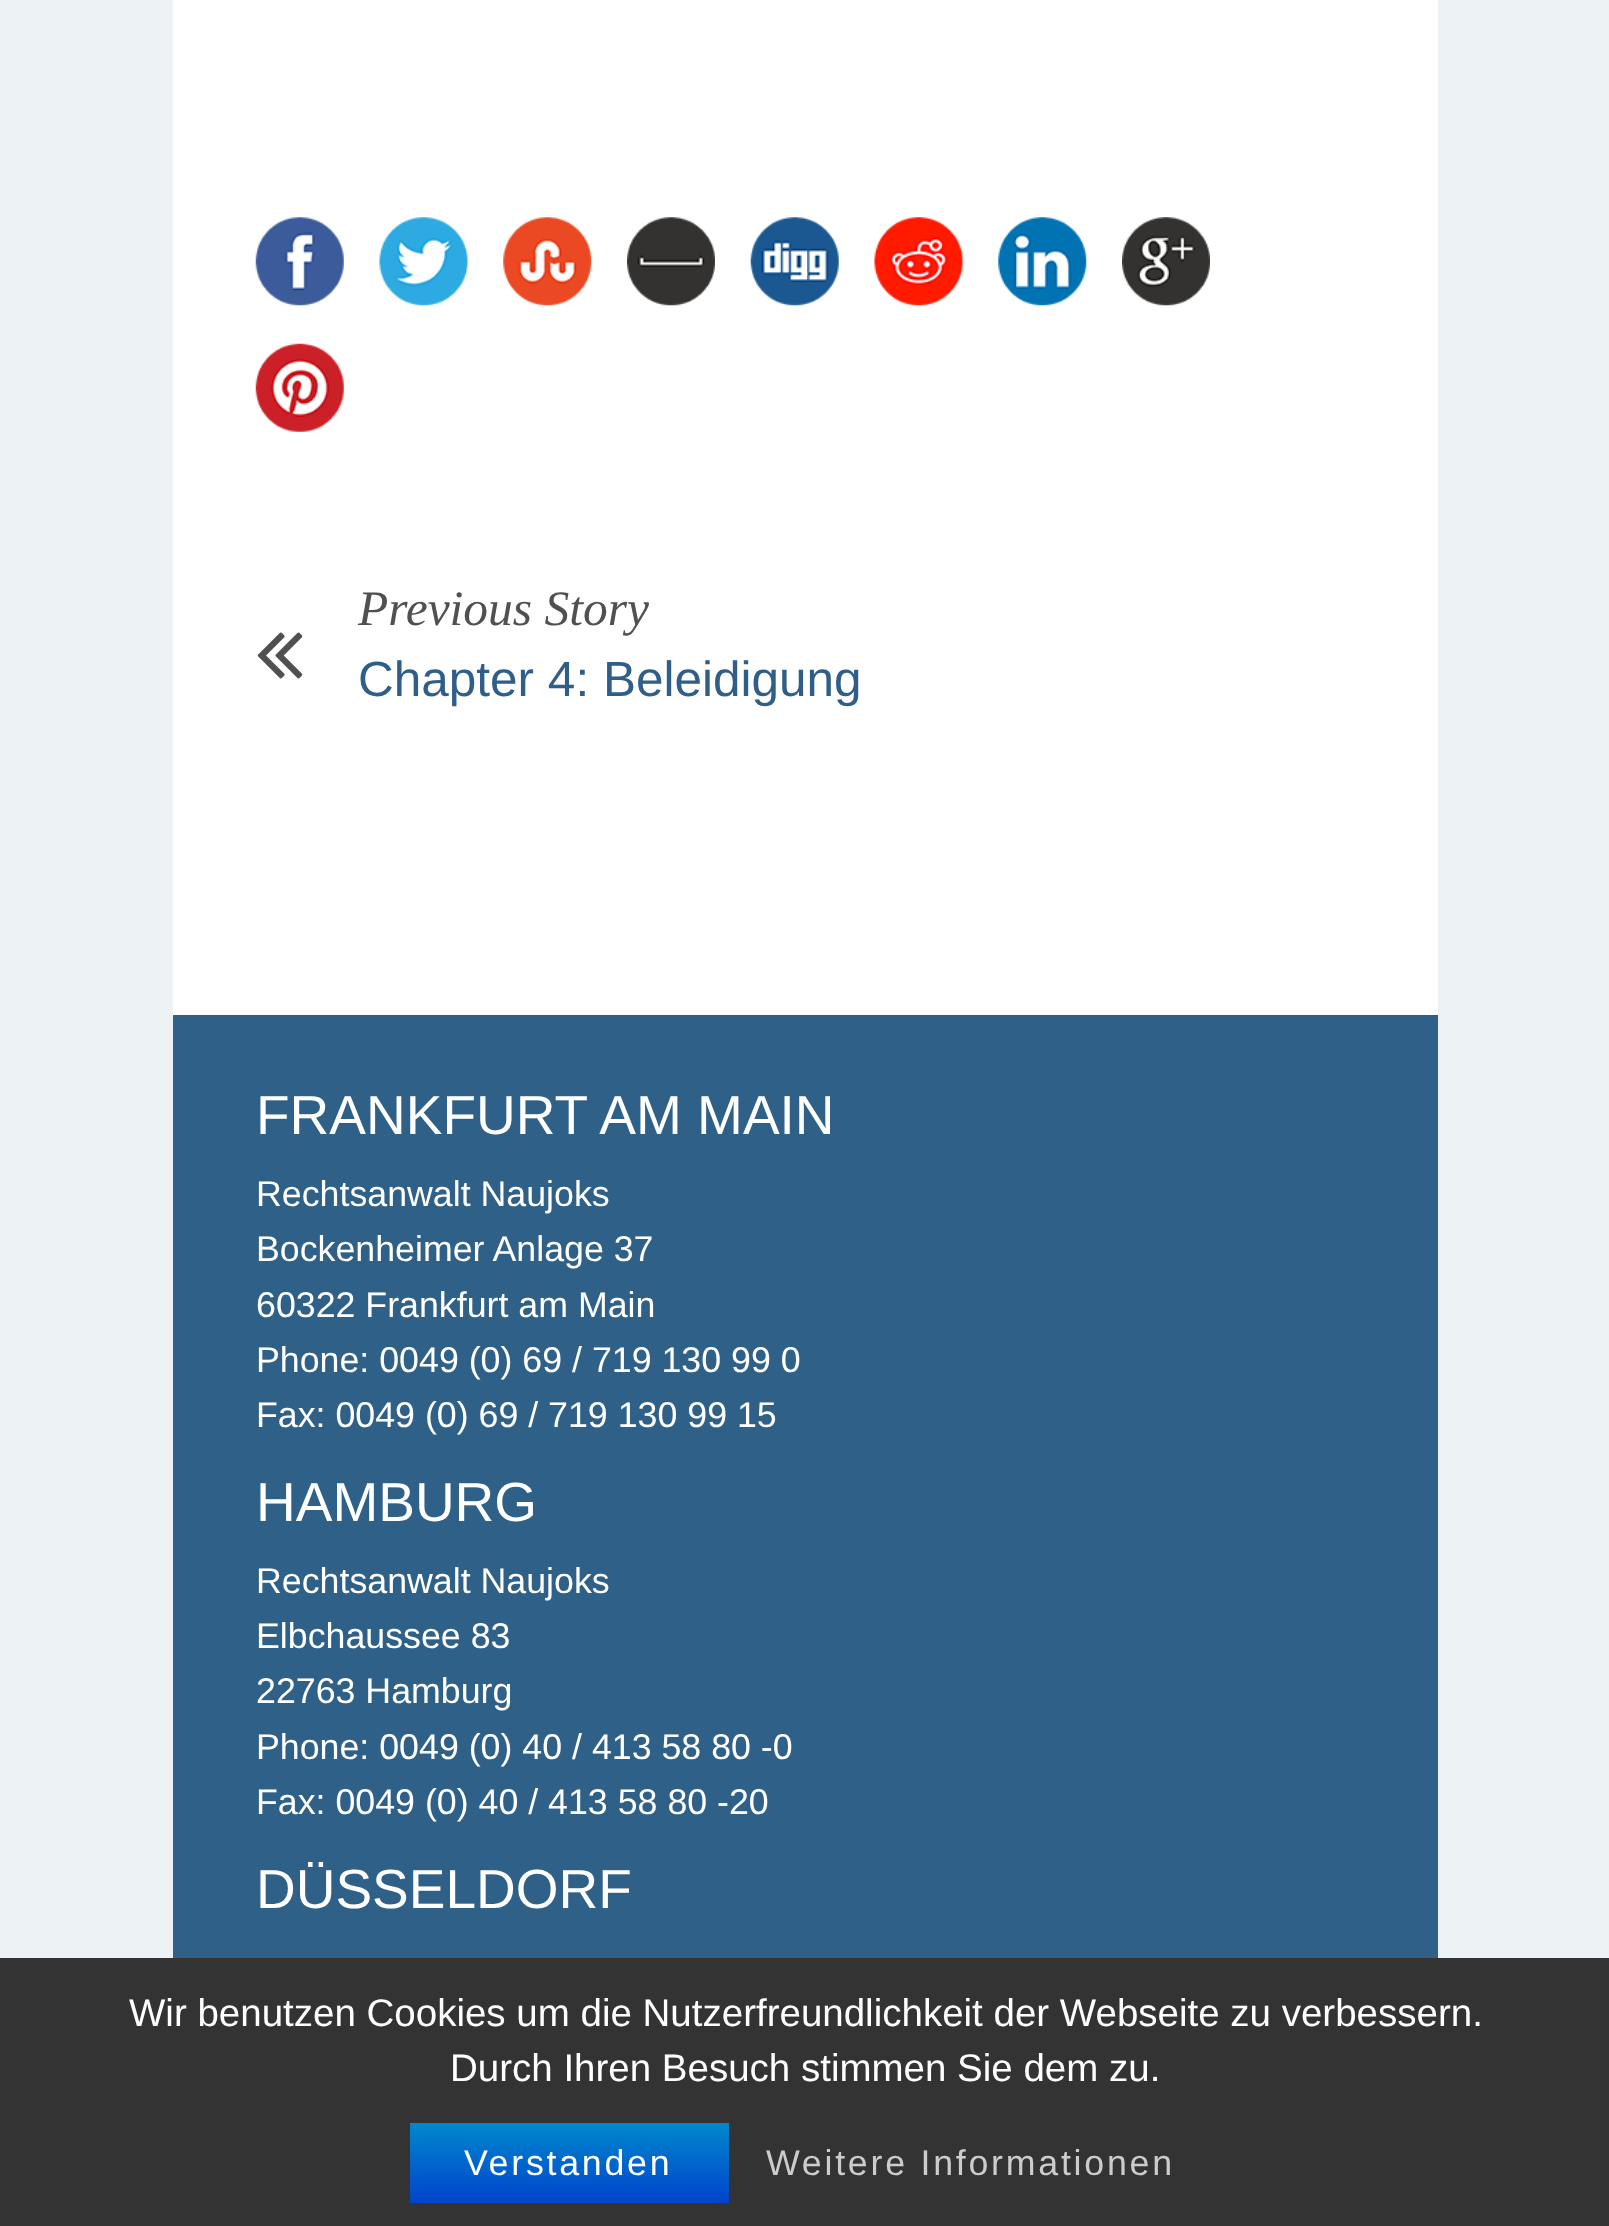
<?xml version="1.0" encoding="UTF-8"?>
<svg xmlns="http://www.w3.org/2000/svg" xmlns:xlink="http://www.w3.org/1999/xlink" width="1609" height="2226">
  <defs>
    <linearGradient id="g1" gradientUnits="userSpaceOnUse" x1="569" y1="2123" x2="569" y2="2203"><stop offset="0" stop-color="#0088cc" /><stop offset="1" stop-color="#0044cc" /></linearGradient>
  </defs>
  <rect width="100%" height="100%" fill="#ecf1f4" />
  <rect x="173" width="1265" height="1015" fill="#ffffff" />
  <image x="255" y="217" width="89" height="89" xlink:href="image1.png" />
  <image x="379" y="217" width="89" height="89" xlink:href="image2.png" />
  <image x="503" y="217" width="89" height="89" xlink:href="image3.png" />
  <image x="627" y="217" width="88" height="89" xlink:href="image4.png" />
  <image x="750" y="217" width="89" height="89" xlink:href="image5.png" />
  <image x="874" y="217" width="89" height="89" xlink:href="image6.png" />
  <image x="998" y="217" width="89" height="89" xlink:href="image7.png" />
  <image x="1122" y="217" width="88" height="89" xlink:href="image8.png" />
  <image x="255" y="343" width="89" height="89" xlink:href="image9.png" />
  <image x="257" y="632" width="46" height="47" xlink:href="image10.png" />
  <rect x="173" y="1015" width="1265" height="943" fill="#2f6088" />
  <rect y="1958" width="1609" height="268" fill="#333333" />
  <rect x="410" y="2123" width="319" height="80" fill="url(#g1)" />
  <text x="358" y="625" style="font-family: Liberation Serif; font-size: 49.5px; font-style: italic; fill: #505050">Previous Story</text>
  <text x="358" y="696" style="font-family: Liberation Sans; font-size: 49.5px; fill: #2f5e88">Chapter 4: Beleidigung</text>
  <text x="256" y="1134" style="font-family: Liberation Sans; font-size: 55px; fill: #ffffff">FRANKFURT AM MAIN</text>
  <text x="256" y="1206" style="font-family: Liberation Sans; font-size: 35.75px; fill: #ffffff">Rechtsanwalt Naujoks</text>
  <text x="256" y="1261" style="font-family: Liberation Sans; font-size: 35.75px; fill: #ffffff">Bockenheimer Anlage 37</text>
  <text x="256" y="1317" style="font-family: Liberation Sans; font-size: 35.75px; fill: #ffffff">60322 Frankfurt am Main</text>
  <text x="256" y="1372" style="font-family: Liberation Sans; font-size: 35.75px; fill: #ffffff">Phone: 0049 (0) 69 / 719 130 99 0</text>
  <text x="256" y="1427" style="font-family: Liberation Sans; font-size: 35.75px; fill: #ffffff">Fax: 0049 (0) 69 / 719 130 99 15</text>
  <text x="256" y="1521" style="font-family: Liberation Sans; font-size: 55px; fill: #ffffff">HAMBURG</text>
  <text x="256" y="1593" style="font-family: Liberation Sans; font-size: 35.75px; fill: #ffffff">Rechtsanwalt Naujoks</text>
  <text x="256" y="1648" style="font-family: Liberation Sans; font-size: 35.75px; fill: #ffffff">Elbchaussee 83</text>
  <text x="256" y="1703" style="font-family: Liberation Sans; font-size: 35.75px; fill: #ffffff">22763 Hamburg</text>
  <text x="256" y="1759" style="font-family: Liberation Sans; font-size: 35.75px; fill: #ffffff">Phone: 0049 (0) 40 / 413 58 80 -0</text>
  <text x="256" y="1814" style="font-family: Liberation Sans; font-size: 35.75px; fill: #ffffff">Fax: 0049 (0) 40 / 413 58 80 -20</text>
  <text x="256" y="1908" style="font-family: Liberation Sans; font-size: 55px; fill: #ffffff">DÜSSELDORF</text>
  <text x="129" y="2026" style="font-family: Liberation Sans; font-size: 38.5px; fill: #ffffff">Wir benutzen Cookies um die Nutzerfreundlichkeit der Webseite zu verbessern.</text>
  <text x="450" y="2081" style="font-family: Liberation Sans; font-size: 38.5px; fill: #ffffff">Durch Ihren Besuch stimmen Sie dem zu.</text>
  <text x="464" y="2175" style="font-family: Liberation Sans; font-size: 35.75px; letter-spacing: 2.75px; fill: #ffffff">Verstanden</text>
  <text x="766" y="2175" style="font-family: Liberation Sans; font-size: 35.75px; letter-spacing: 2.75px; fill: #cccccc">Weitere Informationen</text>
</svg>
